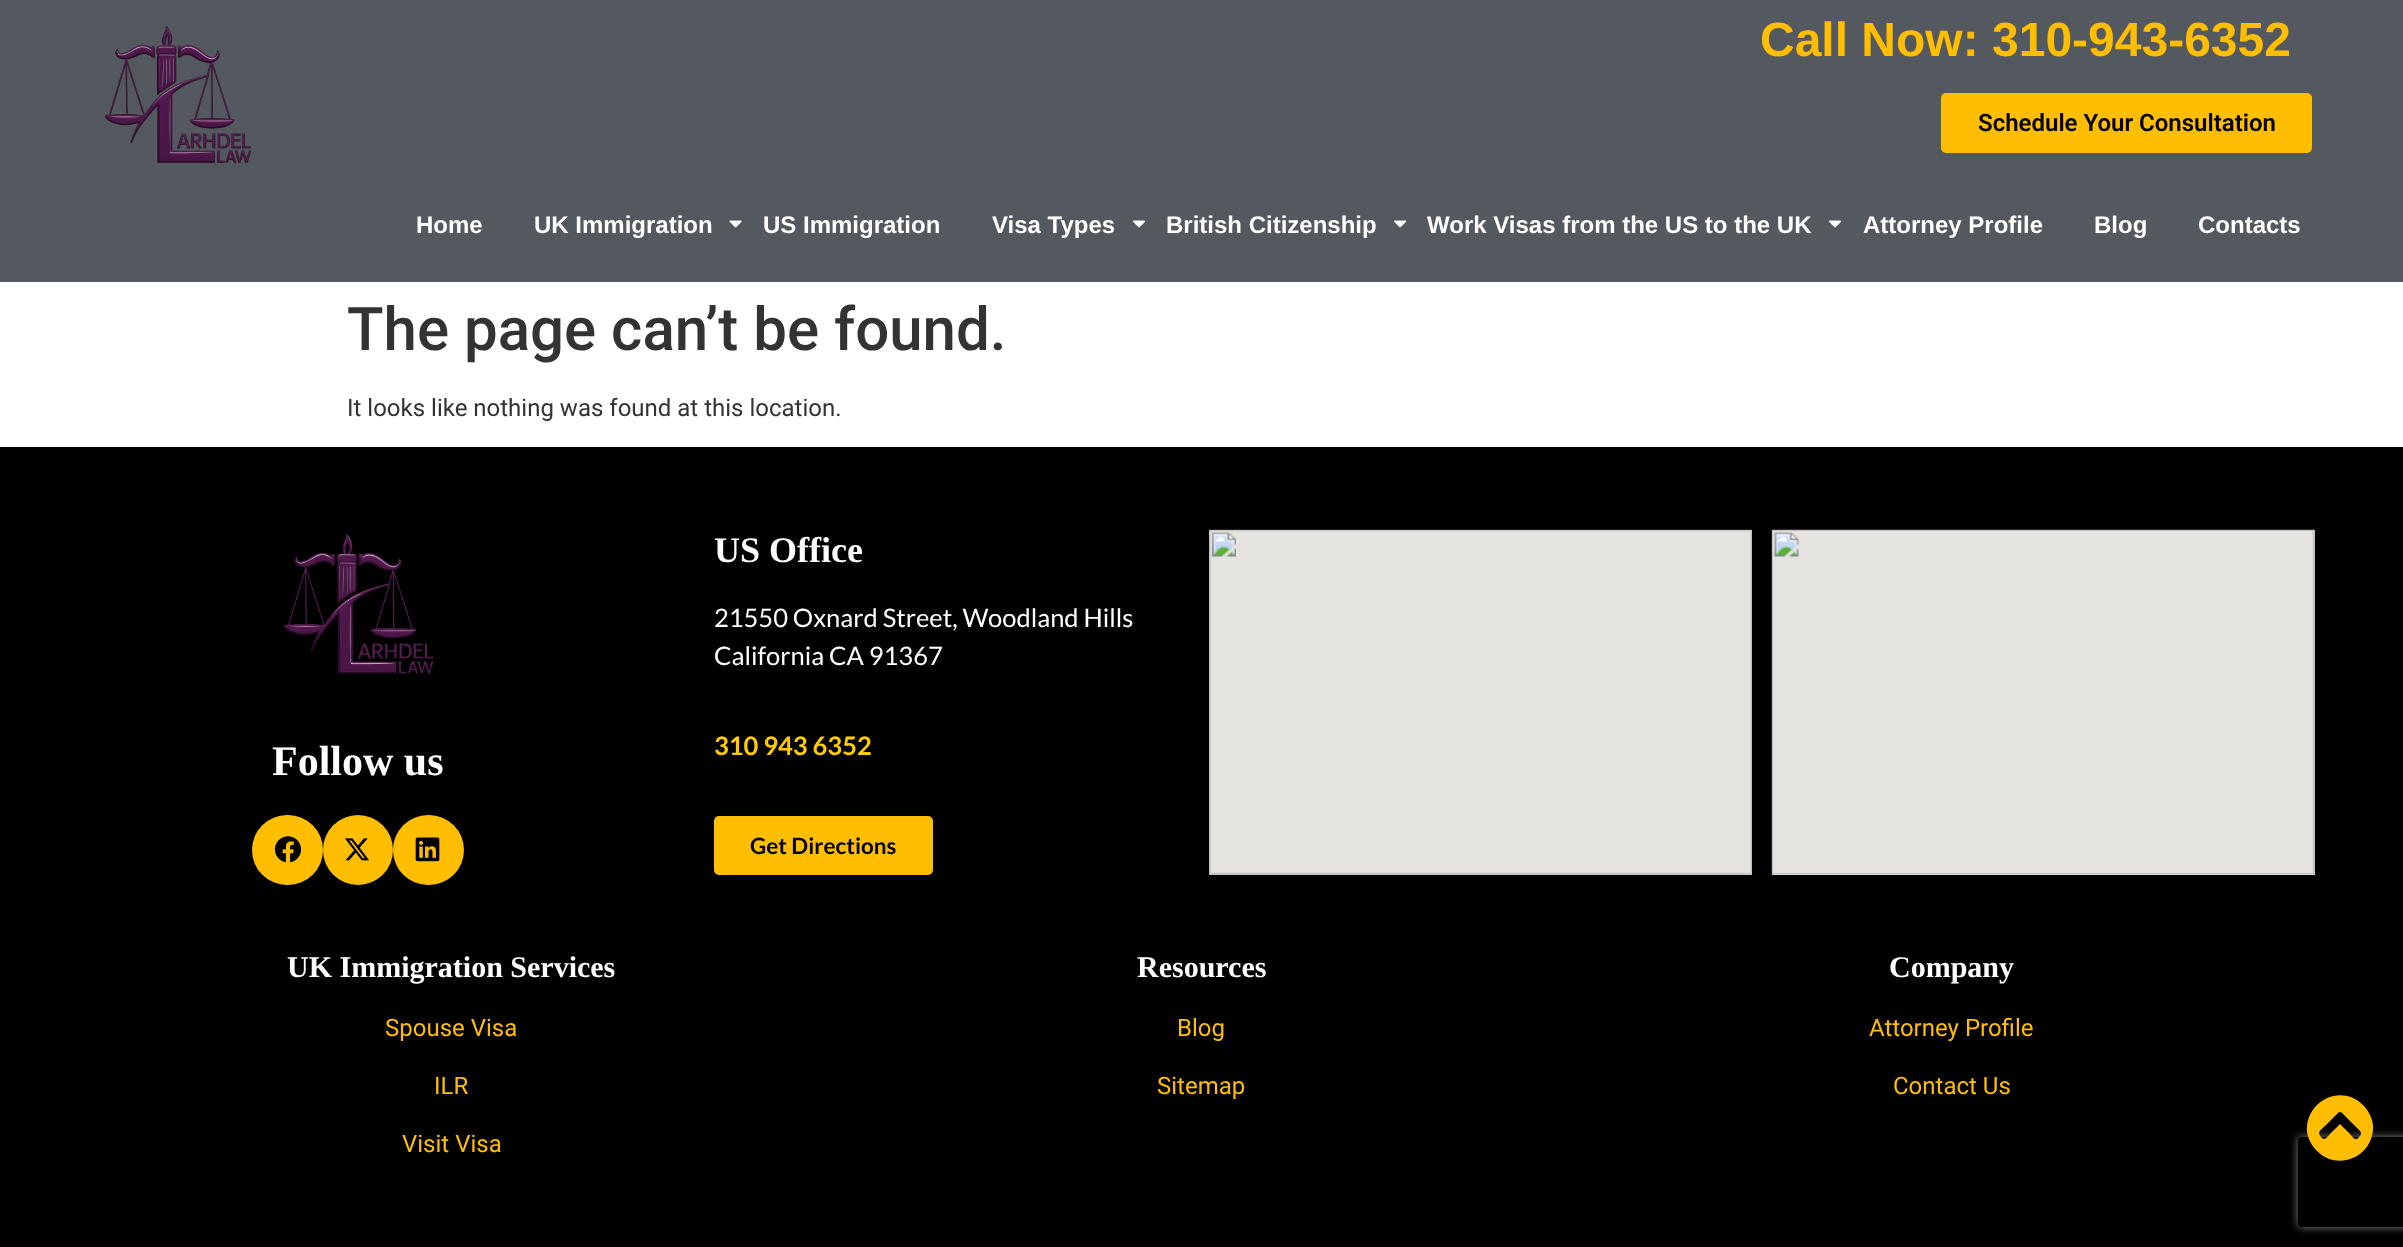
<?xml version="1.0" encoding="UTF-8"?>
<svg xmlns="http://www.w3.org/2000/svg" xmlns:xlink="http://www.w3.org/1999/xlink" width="2403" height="1247">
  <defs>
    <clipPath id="clip1"><path d="M 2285 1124 h 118 v 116 h -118 z m 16 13 h 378 c 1.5 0 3 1.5 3 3 v 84 c 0 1.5 -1.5 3 -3 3 h -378 c -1.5 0 -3 -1.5 -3 -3 v -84 c 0 -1.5 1.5 -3 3 -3 z" clip-rule="evenodd" /></clipPath>
  </defs>
  <rect width="100%" height="100%" fill="#ffffff" />
  <rect width="2403" height="282" fill="#54595f" />
  <image x="105" y="26" width="146" height="138" xlink:href="image1.png" />
  <rect x="1941" y="93" width="371" height="60" rx="5" fill="#ffbe01" />
  <image x="729" y="220" width="13" height="8" xlink:href="image2.png" />
  <image x="1133" y="220" width="13" height="8" xlink:href="image3.png" />
  <image x="1394" y="220" width="13" height="8" xlink:href="image3.png" />
  <image x="1829" y="220" width="13" height="8" xlink:href="image3.png" />
  <rect y="447" width="2403" height="800" fill="#000000" />
  <image x="284" y="533" width="150" height="141" xlink:href="image4.png" />
  <rect x="252" y="815" width="71" height="70" rx="35" fill="#ffbe01" />
  <image x="274" y="836" width="28" height="27" xlink:href="image5.png" />
  <circle cx="358" cy="850" r="35" fill="#ffbe01" />
  <image x="345" y="838" width="24" height="23" xlink:href="image6.png" />
  <rect x="393" y="815" width="71" height="70" rx="35" fill="#ffbe01" />
  <image x="415" y="837" width="25" height="25" xlink:href="image7.png" />
  <rect x="714" y="816" width="219" height="59" rx="5" fill="#ffbe01" />
  <image x="1209" y="529" width="543" height="346" xlink:href="image8.png" />
  <image x="1771" y="529" width="544" height="346" xlink:href="image9.png" />
  <g clip-path="url(#clip1)">
    <rect x="2298" y="1137" width="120" height="90" rx="3" fill="#808080" filter="blur(4px)" />
  </g>
  <path d="M 2317 1151 c -5 -5 -9 -12 -10 -19 c -2 -31 34 -49 56 -27 c 5 5 9 12 10 20 c 2 30 -34 48 -56 26 z m 21 -38 l -12 12 c -6 6 -10 7 -4 13 c 3 3 7 -3 9 -5 l 9 -9 l 9 9 c 2 2 5 7 8 6 l 2 -2 c 4 -4 2 -5 -2 -9 l -12 -12 c -2 -2 -4 -6 -7 -3 z" fill="#ffbe01" />
  <text x="1760" y="56" style="font-family: Liberation Sans; font-size: 48px; font-weight: bold; fill: #ffbe01">Call Now: 310-943-6352</text>
  <text x="1978" y="131" style="font-family: Roboto; font-size: 24px; font-weight: 600; fill: #000000">Schedule Your Consultation</text>
  <text x="416" y="233" style="font-family: Liberation Sans; font-size: 24px; font-weight: bold; fill: #ffffff">Home</text>
  <text x="534" y="233" style="font-family: Liberation Sans; font-size: 24px; font-weight: bold; fill: #ffffff">UK Immigration</text>
  <text x="763" y="233" style="font-family: Liberation Sans; font-size: 24px; font-weight: bold; fill: #ffffff">US Immigration</text>
  <text x="992" y="233" style="font-family: Liberation Sans; font-size: 24px; font-weight: bold; fill: #ffffff">Visa Types</text>
  <text x="1166" y="233" style="font-family: Liberation Sans; font-size: 24px; font-weight: bold; fill: #ffffff">British Citizenship</text>
  <text x="1427" y="233" style="font-family: Liberation Sans; font-size: 24px; font-weight: bold; fill: #ffffff">Work Visas from the US to the UK</text>
  <text x="1863" y="233" style="font-family: Liberation Sans; font-size: 24px; font-weight: bold; fill: #ffffff">Attorney Profile</text>
  <text x="2094" y="233" style="font-family: Liberation Sans; font-size: 24px; font-weight: bold; fill: #ffffff">Blog</text>
  <text x="2198" y="233" style="font-family: Liberation Sans; font-size: 24px; font-weight: bold; fill: #ffffff">Contacts</text>
  <text x="347" y="350" style="font-family: Roboto; font-size: 60px; font-weight: 500; fill: #333333">The page can’t be found.</text>
  <text x="347" y="416" style="font-family: Roboto; font-size: 24px; fill: #333333">It looks like nothing was found at this location.</text>
  <text x="272" y="775" style="font-family: Liberation Serif; font-size: 42px; font-weight: bold; fill: #ffffff">Follow us</text>
  <text x="714" y="562" style="font-family: Liberation Serif; font-size: 36px; font-weight: bold; fill: #ffffff">US Office</text>
  <text x="714" y="627" style="font-family: Lato; font-size: 25.5px; fill: #ffffff">21550 Oxnard Street, Woodland Hills</text>
  <text x="714" y="665" style="font-family: Lato; font-size: 25.5px; fill: #ffffff">California CA 91367</text>
  <text x="714" y="755" style="font-family: Lato; font-size: 25.5px; font-weight: bold; fill: #ffcc00">310 943 6352</text>
  <text x="750" y="854" style="font-family: Lato; font-size: 22.5px; font-weight: bold; fill: #000000">Get Directions</text>
  <text x="287" y="977" style="font-family: Liberation Serif; font-size: 30px; font-weight: bold; fill: #ffffff">UK Immigration Services</text>
  <text x="385" y="1036" style="font-family: Roboto; font-size: 24px; fill: #ffbe01">Spouse Visa</text>
  <text x="434" y="1094" style="font-family: Roboto; font-size: 24px; fill: #ffbe01">ILR</text>
  <text x="402" y="1152" style="font-family: Roboto; font-size: 24px; fill: #ffbe01">Visit Visa</text>
  <text x="1137" y="977" style="font-family: Liberation Serif; font-size: 30px; font-weight: bold; fill: #ffffff">Resources</text>
  <text x="1177" y="1036" style="font-family: Roboto; font-size: 24px; fill: #ffbe01">Blog</text>
  <text x="1157" y="1094" style="font-family: Roboto; font-size: 24px; fill: #ffbe01">Sitemap</text>
  <text x="1889" y="977" style="font-family: Liberation Serif; font-size: 30px; font-weight: bold; fill: #ffffff">Company</text>
  <text x="1869" y="1036" style="font-family: Roboto; font-size: 24px; fill: #ffbe01">Attorney Profile</text>
  <text x="1893" y="1094" style="font-family: Roboto; font-size: 24px; fill: #ffbe01">Contact Us</text>
</svg>
